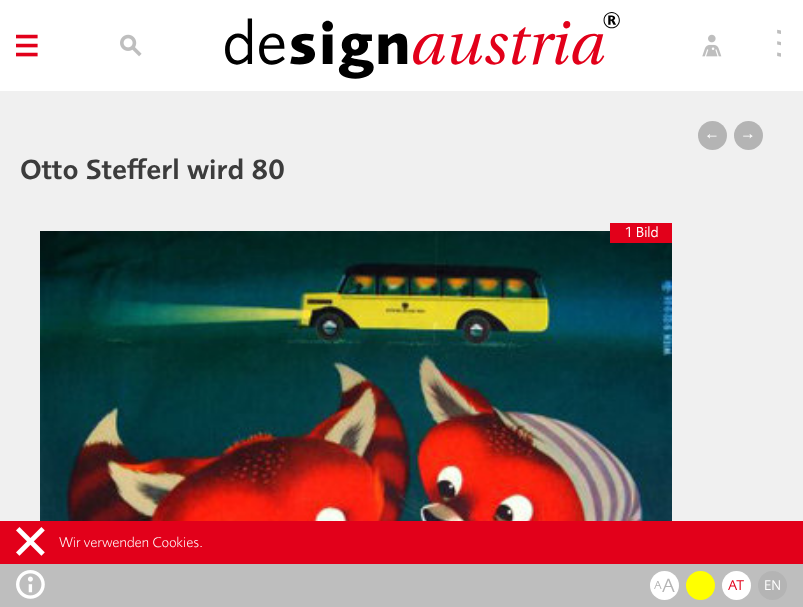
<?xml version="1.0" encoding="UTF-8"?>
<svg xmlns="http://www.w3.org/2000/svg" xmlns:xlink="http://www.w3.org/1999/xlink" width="803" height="607">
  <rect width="100%" height="100%" fill="#f0f0f0" />
  <rect width="803" height="91" fill="#ffffff" />
  <image x="16" y="34" width="22" height="23" xlink:href="image1.png" />
  <image x="702" y="34" width="20" height="23" xlink:href="image2.png" />
  <image x="120" y="34" width="22" height="23" xlink:href="image3.png" />
  <image x="225" y="12" width="395" height="67" xlink:href="image4.png" />
  <circle cx="712.5" cy="135.5" r="14.5" fill="#b4b4b4" />
  <circle cx="748.5" cy="135.5" r="14.5" fill="#b4b4b4" />
  <image x="40" y="231" width="632" height="290" xlink:href="image5.png" />
  <rect x="610" y="223" width="62" height="20" fill="#e2001a" />
  <rect y="564" width="803" height="43" fill="#bebebe" />
  <image x="16" y="570" width="29" height="29" xlink:href="image6.png" />
  <circle cx="664.5" cy="585.5" r="14.5" fill="#ffffff" />
  <circle cx="700.5" cy="585.5" r="14.5" fill="#ffff00" />
  <circle cx="736.5" cy="585.5" r="14.5" fill="#ffffff" />
  <circle cx="772.5" cy="585.5" r="14.5" fill="#b4b4b4" />
  <rect y="521" width="803" height="43" fill="#e2001a" />
  <image x="16" y="527" width="29" height="29" xlink:href="image7.png" />
  <text x="781" y="60" transform="rotate(-90 781 60)" style="font-family: Liberation Sans; font-size: 36px; font-style: italic; fill: #bebebe">…</text>
  <text x="707" y="141" style="font-family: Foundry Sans; font-size: 14.5px; fill: #ffffff">←</text>
  <text x="743" y="141" style="font-family: Foundry Sans; font-size: 14.5px; fill: #ffffff">→</text>
  <text x="20" y="179" style="font-family: Foundry Sans; font-size: 28.75px; font-weight: 600; fill: #3c3c3c">Otto Stefferl wird 80</text>
  <text x="625" y="237" style="font-family: Foundry Sans; font-size: 15px; fill: #ffffff">1 Bild</text>
  <text x="654" y="589" style="font-family: Foundry Sans; font-size: 12px; fill: #b4b4b4">A</text>
  <text x="662" y="592" style="font-family: Foundry Sans; font-size: 20px; fill: #b4b4b4">A</text>
  <text x="728" y="590" style="font-family: Foundry Sans; font-size: 14.5px; fill: #e2001a">AT</text>
  <text x="764" y="590" style="font-family: Foundry Sans; font-size: 14.5px; fill: #ffffff">EN</text>
  <text x="59" y="547" style="font-family: Foundry Sans; font-size: 14.5px; font-weight: 300; fill: #ffffff">Wir verwenden Cookies.</text>
</svg>
